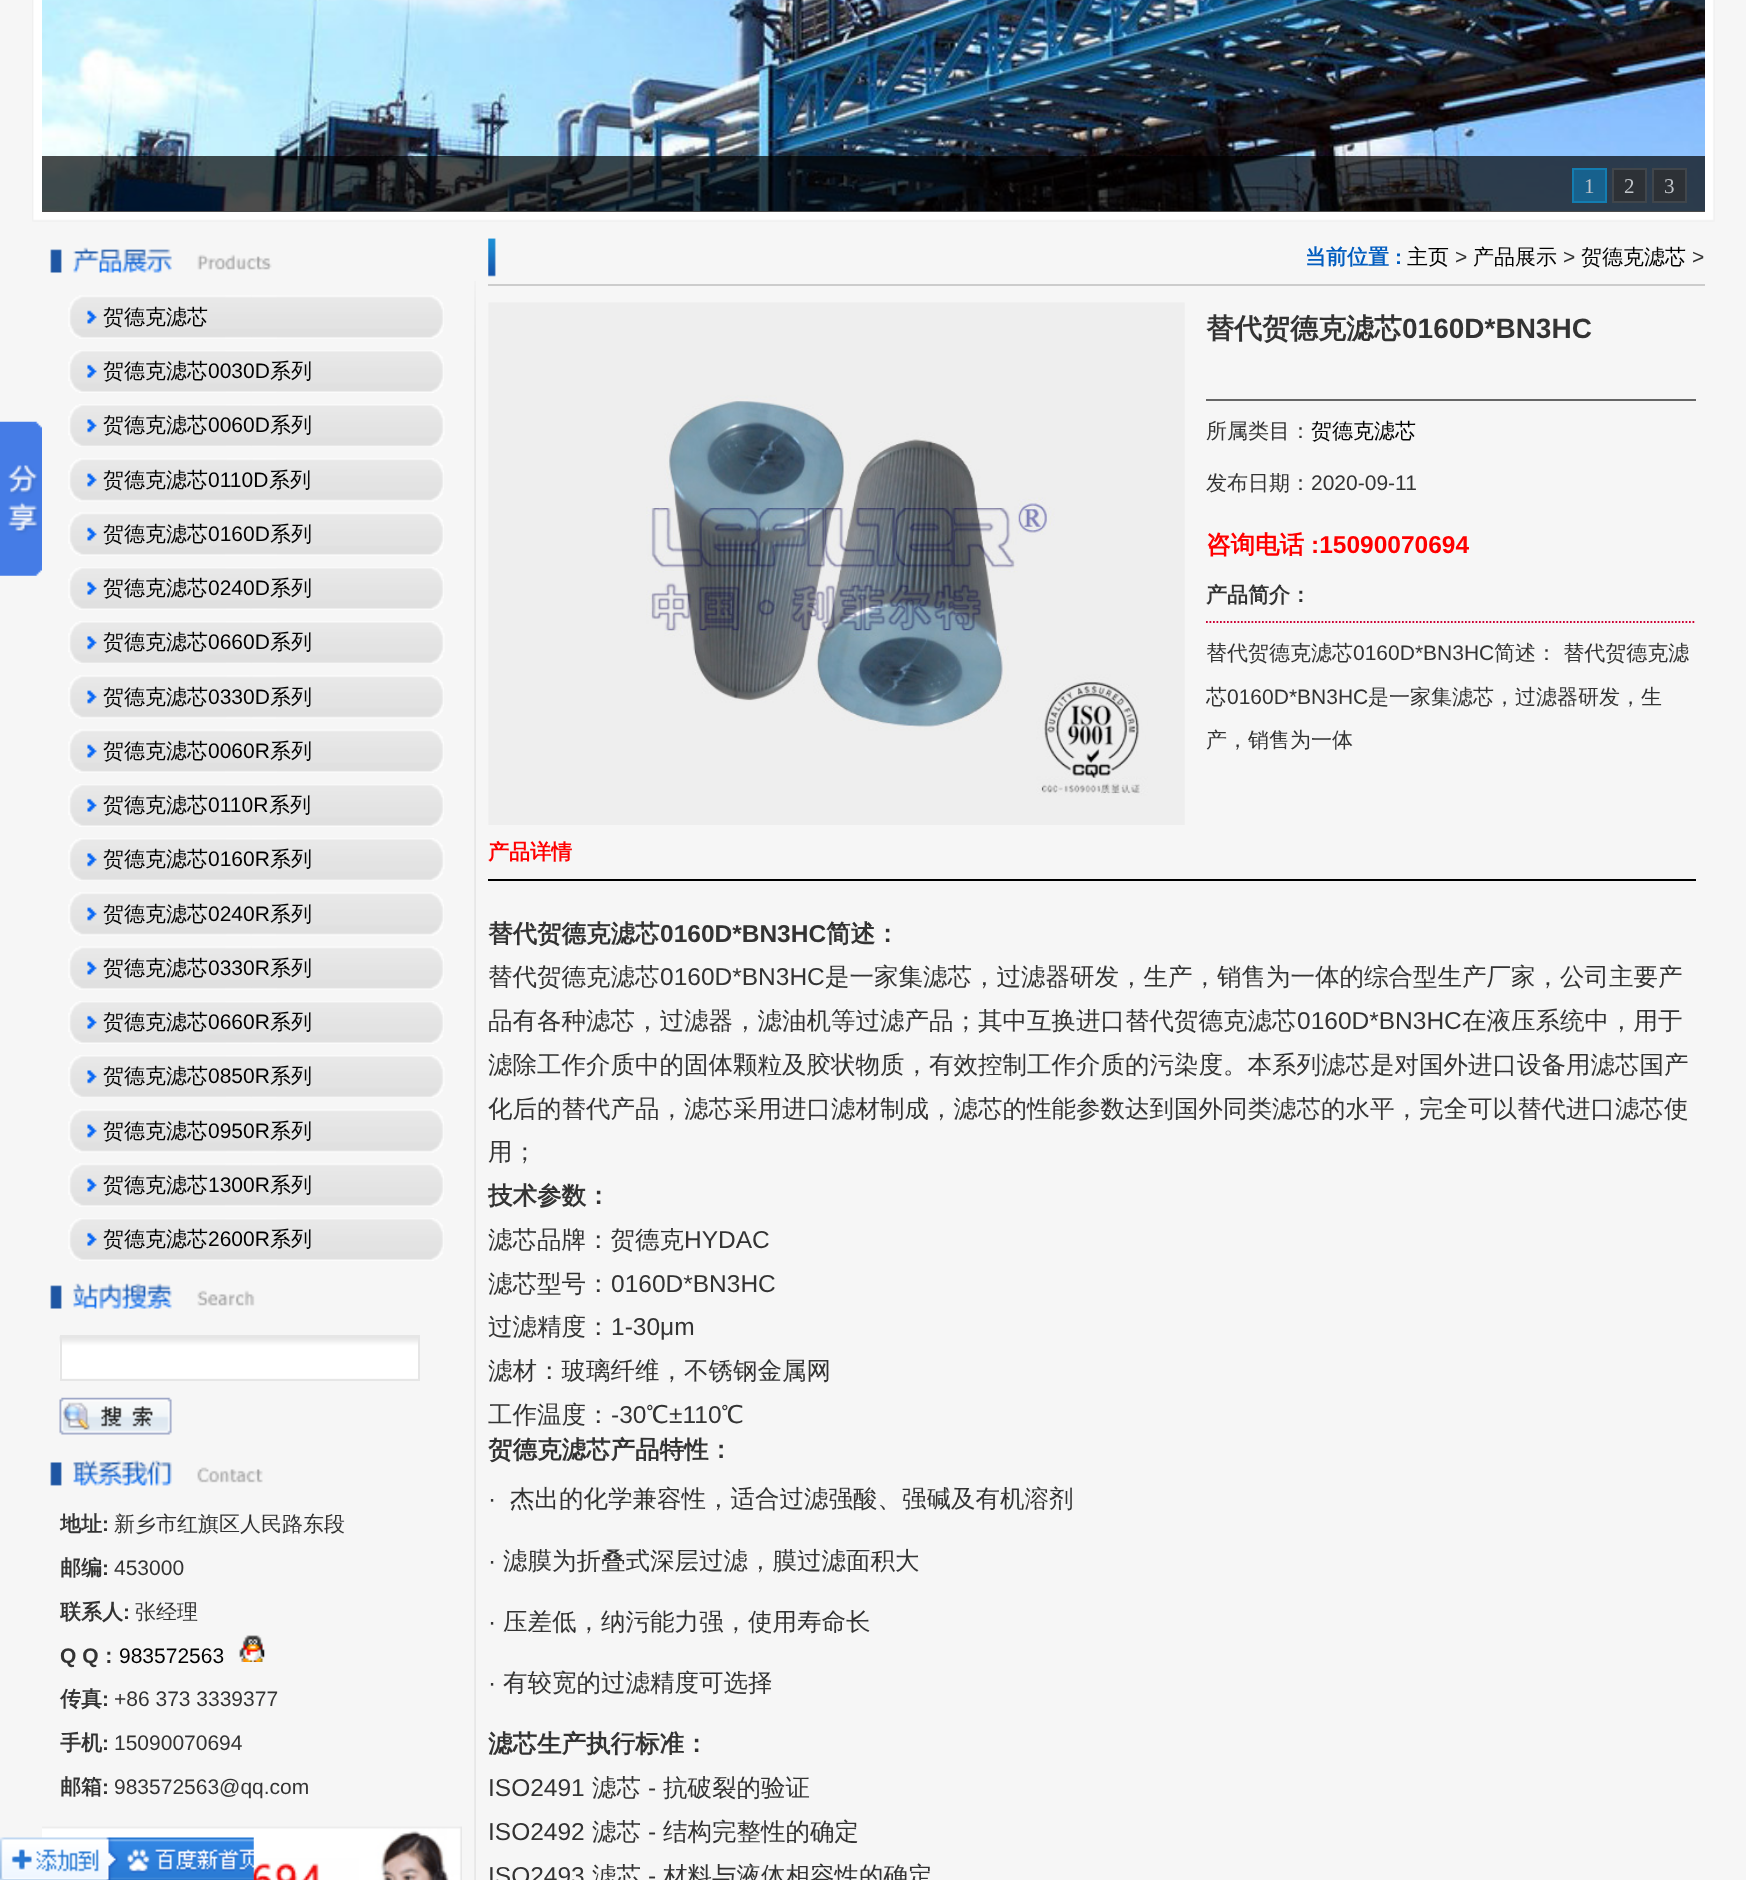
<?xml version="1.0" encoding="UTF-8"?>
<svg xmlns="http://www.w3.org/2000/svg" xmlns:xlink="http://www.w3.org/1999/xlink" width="1746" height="1880">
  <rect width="100%" height="100%" fill="#f6f6f6" />
  <image x="0" y="421" width="42" height="155" xlink:href="image1.png" />
  <image x="32" y="0" width="1683" height="222" xlink:href="image2.png" />
  <image x="42" y="0" width="1663" height="211" xlink:href="image3.png" />
  <rect x="42" y="156" width="1663" height="56" fill="#000000" fill-opacity="0.7" />
  <rect x="1573" y="169" width="33" height="33" fill="#1072aa" fill-opacity="0.7" stroke="#137db1" stroke-width="2" />
  <rect x="1613" y="169" width="33" height="33" fill="#2d3136" stroke="#41464b" stroke-width="2" />
  <rect x="1653" y="169" width="33" height="33" fill="#2d3136" stroke="#41464b" stroke-width="2" />
  <image x="474" y="281" width="2" height="1599" xlink:href="image4.png" />
  <image x="50" y="247" width="222" height="26" xlink:href="image5.png" />
  <image x="68" y="295" width="376" height="44" xlink:href="image6.png" />
  <image x="68" y="350" width="376" height="43" xlink:href="image7.png" />
  <image x="68" y="404" width="377" height="43" xlink:href="image8.png" />
  <image x="68" y="458" width="376" height="44" xlink:href="image9.png" />
  <image x="68" y="512" width="376" height="44" xlink:href="image6.png" />
  <image x="68" y="567" width="376" height="43" xlink:href="image7.png" />
  <image x="68" y="621" width="377" height="43" xlink:href="image8.png" />
  <image x="68" y="675" width="376" height="44" xlink:href="image9.png" />
  <image x="68" y="729" width="376" height="44" xlink:href="image6.png" />
  <image x="68" y="784" width="376" height="43" xlink:href="image7.png" />
  <image x="68" y="838" width="377" height="43" xlink:href="image8.png" />
  <image x="68" y="892" width="376" height="44" xlink:href="image9.png" />
  <image x="68" y="946" width="376" height="44" xlink:href="image6.png" />
  <image x="68" y="1001" width="376" height="43" xlink:href="image7.png" />
  <image x="68" y="1055" width="377" height="43" xlink:href="image8.png" />
  <image x="68" y="1109" width="376" height="44" xlink:href="image9.png" />
  <image x="68" y="1163" width="376" height="44" xlink:href="image6.png" />
  <image x="68" y="1218" width="376" height="43" xlink:href="image7.png" />
  <image x="50" y="1283" width="205" height="26" xlink:href="image10.png" />
  <image x="59" y="1336" width="359" height="43" xlink:href="image11.png" />
  <rect x="61" y="1336" width="358" height="44" fill="none" stroke="#e6e6e6" stroke-width="2" />
  <image x="59" y="1397" width="113" height="38" xlink:href="image12.png" />
  <image x="50" y="1460" width="213" height="26" xlink:href="image13.png" />
  <image x="239" y="1635" width="26" height="27" xlink:href="image14.png" />
  <image x="42" y="1826" width="420" height="54" xlink:href="image15.png" />
  <image x="488" y="238" width="8" height="39" xlink:href="image16.png" />
  <rect x="488" y="284" width="1217" height="2" fill="#cccccc" />
  <image x="488" y="302" width="697" height="523" xlink:href="image17.png" />
  <rect x="1206" y="399" width="490" height="2" fill="#666666" />
  <path d="M 1206 622 h 490" fill="none" stroke="#cc0033" stroke-width="1.8" stroke-dasharray="1.75 1.75" />
  <rect x="488" y="879" width="1208" height="2" fill="#000000" />
  <image x="0" y="1837" width="254" height="43" xlink:href="image18.png" />
  <text x="1584" y="193" style="font-family: Liberation Serif; font-size: 21px; fill: #c0c4c9">1</text>
  <text x="1624" y="193" style="font-family: Liberation Serif; font-size: 21px; fill: #c0c4c9">2</text>
  <text x="1664" y="193" style="font-family: Liberation Serif; font-size: 21px; fill: #c0c4c9">3</text>
  <text x="103" y="324" style="font-family: WenQuanYi Zen Hei; font-size: 21px; font-weight: 500; fill: #000000">贺德克滤芯</text>
  <text x="103" y="378" style="font-family: WenQuanYi Zen Hei; font-size: 21px; font-weight: 500; fill: #000000">贺德克滤芯</text>
  <text x="208" y="378" style="font-family: Liberation Sans; font-size: 21px; fill: #000000">0030D</text>
  <text x="270" y="378" style="font-family: WenQuanYi Zen Hei; font-size: 21px; font-weight: 500; fill: #000000">系列</text>
  <text x="103" y="432" style="font-family: WenQuanYi Zen Hei; font-size: 21px; font-weight: 500; fill: #000000">贺德克滤芯</text>
  <text x="208" y="432" style="font-family: Liberation Sans; font-size: 21px; fill: #000000">0060D</text>
  <text x="270" y="432" style="font-family: WenQuanYi Zen Hei; font-size: 21px; font-weight: 500; fill: #000000">系列</text>
  <text x="103" y="487" style="font-family: WenQuanYi Zen Hei; font-size: 21px; font-weight: 500; fill: #000000">贺德克滤芯</text>
  <text x="208" y="487" style="font-family: Liberation Sans; font-size: 21px; fill: #000000">0110D</text>
  <text x="269" y="487" style="font-family: WenQuanYi Zen Hei; font-size: 21px; font-weight: 500; fill: #000000">系列</text>
  <text x="103" y="541" style="font-family: WenQuanYi Zen Hei; font-size: 21px; font-weight: 500; fill: #000000">贺德克滤芯</text>
  <text x="208" y="541" style="font-family: Liberation Sans; font-size: 21px; fill: #000000">0160D</text>
  <text x="270" y="541" style="font-family: WenQuanYi Zen Hei; font-size: 21px; font-weight: 500; fill: #000000">系列</text>
  <text x="103" y="595" style="font-family: WenQuanYi Zen Hei; font-size: 21px; font-weight: 500; fill: #000000">贺德克滤芯</text>
  <text x="208" y="595" style="font-family: Liberation Sans; font-size: 21px; fill: #000000">0240D</text>
  <text x="270" y="595" style="font-family: WenQuanYi Zen Hei; font-size: 21px; font-weight: 500; fill: #000000">系列</text>
  <text x="103" y="649" style="font-family: WenQuanYi Zen Hei; font-size: 21px; font-weight: 500; fill: #000000">贺德克滤芯</text>
  <text x="208" y="649" style="font-family: Liberation Sans; font-size: 21px; fill: #000000">0660D</text>
  <text x="270" y="649" style="font-family: WenQuanYi Zen Hei; font-size: 21px; font-weight: 500; fill: #000000">系列</text>
  <text x="103" y="704" style="font-family: WenQuanYi Zen Hei; font-size: 21px; font-weight: 500; fill: #000000">贺德克滤芯</text>
  <text x="208" y="704" style="font-family: Liberation Sans; font-size: 21px; fill: #000000">0330D</text>
  <text x="270" y="704" style="font-family: WenQuanYi Zen Hei; font-size: 21px; font-weight: 500; fill: #000000">系列</text>
  <text x="103" y="758" style="font-family: WenQuanYi Zen Hei; font-size: 21px; font-weight: 500; fill: #000000">贺德克滤芯</text>
  <text x="208" y="758" style="font-family: Liberation Sans; font-size: 21px; fill: #000000">0060R</text>
  <text x="270" y="758" style="font-family: WenQuanYi Zen Hei; font-size: 21px; font-weight: 500; fill: #000000">系列</text>
  <text x="103" y="812" style="font-family: WenQuanYi Zen Hei; font-size: 21px; font-weight: 500; fill: #000000">贺德克滤芯</text>
  <text x="208" y="812" style="font-family: Liberation Sans; font-size: 21px; fill: #000000">0110R</text>
  <text x="269" y="812" style="font-family: WenQuanYi Zen Hei; font-size: 21px; font-weight: 500; fill: #000000">系列</text>
  <text x="103" y="866" style="font-family: WenQuanYi Zen Hei; font-size: 21px; font-weight: 500; fill: #000000">贺德克滤芯</text>
  <text x="208" y="866" style="font-family: Liberation Sans; font-size: 21px; fill: #000000">0160R</text>
  <text x="270" y="866" style="font-family: WenQuanYi Zen Hei; font-size: 21px; font-weight: 500; fill: #000000">系列</text>
  <text x="103" y="921" style="font-family: WenQuanYi Zen Hei; font-size: 21px; font-weight: 500; fill: #000000">贺德克滤芯</text>
  <text x="208" y="921" style="font-family: Liberation Sans; font-size: 21px; fill: #000000">0240R</text>
  <text x="270" y="921" style="font-family: WenQuanYi Zen Hei; font-size: 21px; font-weight: 500; fill: #000000">系列</text>
  <text x="103" y="975" style="font-family: WenQuanYi Zen Hei; font-size: 21px; font-weight: 500; fill: #000000">贺德克滤芯</text>
  <text x="208" y="975" style="font-family: Liberation Sans; font-size: 21px; fill: #000000">0330R</text>
  <text x="270" y="975" style="font-family: WenQuanYi Zen Hei; font-size: 21px; font-weight: 500; fill: #000000">系列</text>
  <text x="103" y="1029" style="font-family: WenQuanYi Zen Hei; font-size: 21px; font-weight: 500; fill: #000000">贺德克滤芯</text>
  <text x="208" y="1029" style="font-family: Liberation Sans; font-size: 21px; fill: #000000">0660R</text>
  <text x="270" y="1029" style="font-family: WenQuanYi Zen Hei; font-size: 21px; font-weight: 500; fill: #000000">系列</text>
  <text x="103" y="1083" style="font-family: WenQuanYi Zen Hei; font-size: 21px; font-weight: 500; fill: #000000">贺德克滤芯</text>
  <text x="208" y="1083" style="font-family: Liberation Sans; font-size: 21px; fill: #000000">0850R</text>
  <text x="270" y="1083" style="font-family: WenQuanYi Zen Hei; font-size: 21px; font-weight: 500; fill: #000000">系列</text>
  <text x="103" y="1138" style="font-family: WenQuanYi Zen Hei; font-size: 21px; font-weight: 500; fill: #000000">贺德克滤芯</text>
  <text x="208" y="1138" style="font-family: Liberation Sans; font-size: 21px; fill: #000000">0950R</text>
  <text x="270" y="1138" style="font-family: WenQuanYi Zen Hei; font-size: 21px; font-weight: 500; fill: #000000">系列</text>
  <text x="103" y="1192" style="font-family: WenQuanYi Zen Hei; font-size: 21px; font-weight: 500; fill: #000000">贺德克滤芯</text>
  <text x="208" y="1192" style="font-family: Liberation Sans; font-size: 21px; fill: #000000">1300R</text>
  <text x="270" y="1192" style="font-family: WenQuanYi Zen Hei; font-size: 21px; font-weight: 500; fill: #000000">系列</text>
  <text x="103" y="1246" style="font-family: WenQuanYi Zen Hei; font-size: 21px; font-weight: 500; fill: #000000">贺德克滤芯</text>
  <text x="208" y="1246" style="font-family: Liberation Sans; font-size: 21px; fill: #000000">2600R</text>
  <text x="270" y="1246" style="font-family: WenQuanYi Zen Hei; font-size: 21px; font-weight: 500; fill: #000000">系列</text>
  <text x="60" y="1531" style="font-family: WenQuanYi Zen Hei; font-size: 21px; font-weight: bold; fill: #333333">地址</text>
  <text x="102" y="1531" style="font-family: Liberation Sans; font-size: 21px; font-weight: bold; fill: #333333">:</text>
  <text x="114" y="1531" style="font-family: WenQuanYi Zen Hei; font-size: 21px; font-weight: 500; fill: #333333">新乡市红旗区人民路东段</text>
  <text x="60" y="1575" style="font-family: WenQuanYi Zen Hei; font-size: 21px; font-weight: bold; fill: #333333">邮编</text>
  <text x="102" y="1575" style="font-family: Liberation Sans; font-size: 21px; font-weight: bold; fill: #333333">:</text>
  <text x="114" y="1575" style="font-family: Liberation Sans; font-size: 21px; fill: #333333">453000</text>
  <text x="60" y="1619" style="font-family: WenQuanYi Zen Hei; font-size: 21px; font-weight: bold; fill: #333333">联系人</text>
  <text x="123" y="1619" style="font-family: Liberation Sans; font-size: 21px; font-weight: bold; fill: #333333">:</text>
  <text x="135" y="1619" style="font-family: WenQuanYi Zen Hei; font-size: 21px; font-weight: 500; fill: #333333">张经理</text>
  <text x="60" y="1663" style="font-family: Liberation Sans; font-size: 21px; font-weight: bold; fill: #333333">Q Q</text>
  <text x="98" y="1663" style="font-family: WenQuanYi Zen Hei; font-size: 21px; font-weight: bold; fill: #333333">：</text>
  <text x="119" y="1663" style="font-family: Liberation Sans; font-size: 21px; fill: #000000">983572563</text>
  <text x="60" y="1706" style="font-family: WenQuanYi Zen Hei; font-size: 21px; font-weight: bold; fill: #333333">传真</text>
  <text x="102" y="1706" style="font-family: Liberation Sans; font-size: 21px; font-weight: bold; fill: #333333">:</text>
  <text x="114" y="1706" style="font-family: Liberation Sans; font-size: 21px; fill: #333333">+86 373 3339377</text>
  <text x="60" y="1750" style="font-family: WenQuanYi Zen Hei; font-size: 21px; font-weight: bold; fill: #333333">手机</text>
  <text x="102" y="1750" style="font-family: Liberation Sans; font-size: 21px; font-weight: bold; fill: #333333">:</text>
  <text x="114" y="1750" style="font-family: Liberation Sans; font-size: 21px; fill: #333333">15090070694</text>
  <text x="60" y="1794" style="font-family: WenQuanYi Zen Hei; font-size: 21px; font-weight: bold; fill: #333333">邮箱</text>
  <text x="102" y="1794" style="font-family: Liberation Sans; font-size: 21px; font-weight: bold; fill: #333333">:</text>
  <text x="114" y="1794" style="font-family: Liberation Sans; font-size: 21px; fill: #333333">983572563@qq.com</text>
  <text x="1305" y="264" style="font-family: WenQuanYi Zen Hei; font-size: 21px; font-weight: bold; fill: #025dbf">当前位置</text>
  <text x="1395" y="264" style="font-family: Liberation Sans; font-size: 21px; font-weight: bold; fill: #025dbf">:</text>
  <text x="1407" y="264" style="font-family: WenQuanYi Zen Hei; font-size: 21px; font-weight: 500; fill: #000000">主页</text>
  <text x="1455" y="264" style="font-family: Liberation Sans; font-size: 21px; fill: #333333">&gt;</text>
  <text x="1473" y="264" style="font-family: WenQuanYi Zen Hei; font-size: 21px; font-weight: 500; fill: #000000">产品展示</text>
  <text x="1563" y="264" style="font-family: Liberation Sans; font-size: 21px; fill: #333333">&gt;</text>
  <text x="1581" y="264" style="font-family: WenQuanYi Zen Hei; font-size: 21px; font-weight: 500; fill: #000000">贺德克滤芯</text>
  <text x="1692" y="264" style="font-family: Liberation Sans; font-size: 21px; fill: #333333">&gt;</text>
  <text x="1206" y="338" style="font-family: WenQuanYi Zen Hei; font-size: 28px; font-weight: bold; fill: #333333">替代贺德克滤芯</text>
  <text x="1402" y="338" style="font-family: Liberation Sans; font-size: 28px; font-weight: bold; fill: #333333">0160D*BN3HC</text>
  <text x="1206" y="438" style="font-family: WenQuanYi Zen Hei; font-size: 21px; font-weight: 500; fill: #333333">所属类目：</text>
  <text x="1311" y="438" style="font-family: WenQuanYi Zen Hei; font-size: 21px; font-weight: 500; fill: #000000">贺德克滤芯</text>
  <text x="1206" y="490" style="font-family: WenQuanYi Zen Hei; font-size: 21px; font-weight: 500; fill: #333333">发布日期：</text>
  <text x="1311" y="490" style="font-family: Liberation Sans; font-size: 21px; fill: #333333">2020-09-11</text>
  <text x="1206" y="553" style="font-family: WenQuanYi Zen Hei; font-size: 24.5px; font-weight: bold; fill: #ff0000">咨询电话</text>
  <text x="1311" y="553" style="font-family: Liberation Sans; font-size: 24.5px; font-weight: bold; fill: #ff0000">:15090070694</text>
  <text x="1206" y="602" style="font-family: WenQuanYi Zen Hei; font-size: 21px; font-weight: bold; fill: #333333">产品简介：</text>
  <text x="1206" y="660" style="font-family: WenQuanYi Zen Hei; font-size: 21px; font-weight: 500; fill: #333333">替代贺德克滤芯</text>
  <text x="1353" y="660" style="font-family: Liberation Sans; font-size: 21px; fill: #333333">0160D*BN3HC</text>
  <text x="1494" y="660" style="font-family: WenQuanYi Zen Hei; font-size: 21px; font-weight: 500; fill: #333333">简述： 替代贺德克滤</text>
  <text x="1206" y="704" style="font-family: WenQuanYi Zen Hei; font-size: 21px; font-weight: 500; fill: #333333">芯</text>
  <text x="1227" y="704" style="font-family: Liberation Sans; font-size: 21px; fill: #333333">0160D*BN3HC</text>
  <text x="1368" y="704" style="font-family: WenQuanYi Zen Hei; font-size: 21px; font-weight: 500; fill: #333333">是一家集滤芯，过滤器研发，生</text>
  <text x="1206" y="747" style="font-family: WenQuanYi Zen Hei; font-size: 21px; font-weight: 500; fill: #333333">产，销售为一体</text>
  <text x="488" y="859" style="font-family: WenQuanYi Zen Hei; font-size: 21px; font-weight: bold; fill: #ff0000">产品详情</text>
  <text x="488" y="942" style="font-family: WenQuanYi Zen Hei; font-size: 24.5px; font-weight: bold; fill: #333333">替代贺德克滤芯</text>
  <text x="660" y="942" style="font-family: Liberation Sans; font-size: 24.5px; font-weight: bold; fill: #333333">0160D*BN3HC</text>
  <text x="826" y="942" style="font-family: WenQuanYi Zen Hei; font-size: 24.5px; font-weight: bold; fill: #333333">简述：</text>
  <text x="488" y="985" style="font-family: WenQuanYi Zen Hei; font-size: 24.5px; font-weight: 500; fill: #333333">替代贺德克滤芯</text>
  <text x="660" y="985" style="font-family: Liberation Sans; font-size: 24.5px; fill: #333333">0160D*BN3HC</text>
  <text x="825" y="985" style="font-family: WenQuanYi Zen Hei; font-size: 24.5px; font-weight: 500; fill: #333333">是一家集滤芯，过滤器研发，生产，销售为一体的综合型生产厂家，公司主要产</text>
  <text x="488" y="1029" style="font-family: WenQuanYi Zen Hei; font-size: 24.5px; font-weight: 500; fill: #333333">品有各种滤芯，过滤器，滤油机等过滤产品；其中互换进口替代贺德克滤芯</text>
  <text x="1297" y="1029" style="font-family: Liberation Sans; font-size: 24.5px; fill: #333333">0160D*BN3HC</text>
  <text x="1462" y="1029" style="font-family: WenQuanYi Zen Hei; font-size: 24.5px; font-weight: 500; fill: #333333">在液压系统中，用于</text>
  <text x="488" y="1073" style="font-family: WenQuanYi Zen Hei; font-size: 24.5px; font-weight: 500; fill: #333333">滤除工作介质中的固体颗粒及胶状物质，有效控制工作介质的污染度。本系列滤芯是对国外进口设备用滤芯国产</text>
  <text x="488" y="1117" style="font-family: WenQuanYi Zen Hei; font-size: 24.5px; font-weight: 500; fill: #333333">化后的替代产品，滤芯采用进口滤材制成，滤芯的性能参数达到国外同类滤芯的水平，完全可以替代进口滤芯使</text>
  <text x="488" y="1160" style="font-family: WenQuanYi Zen Hei; font-size: 24.5px; font-weight: 500; fill: #333333">用；</text>
  <text x="488" y="1204" style="font-family: WenQuanYi Zen Hei; font-size: 24.5px; font-weight: bold; fill: #333333">技术参数：</text>
  <text x="488" y="1248" style="font-family: WenQuanYi Zen Hei; font-size: 24.5px; font-weight: 500; fill: #333333">滤芯品牌：贺德克</text>
  <text x="684" y="1248" style="font-family: Liberation Sans; font-size: 24.5px; fill: #333333">HYDAC</text>
  <text x="488" y="1292" style="font-family: WenQuanYi Zen Hei; font-size: 24.5px; font-weight: 500; fill: #333333">滤芯型号：</text>
  <text x="611" y="1292" style="font-family: Liberation Sans; font-size: 24.5px; fill: #333333">0160D*BN3HC</text>
  <text x="488" y="1335" style="font-family: WenQuanYi Zen Hei; font-size: 24.5px; font-weight: 500; fill: #333333">过滤精度：</text>
  <text x="611" y="1335" style="font-family: Liberation Sans; font-size: 24.5px; fill: #333333">1-30μm</text>
  <text x="488" y="1379" style="font-family: WenQuanYi Zen Hei; font-size: 24.5px; font-weight: 500; fill: #333333">滤材：玻璃纤维，不锈钢金属网</text>
  <text x="488" y="1423" style="font-family: WenQuanYi Zen Hei; font-size: 24.5px; font-weight: 500; fill: #333333">工作温度：</text>
  <text x="611" y="1423" style="font-family: Liberation Sans; font-size: 24.5px; fill: #333333">-30</text>
  <text x="646" y="1423" style="font-family: WenQuanYi Zen Hei; font-size: 24.5px; font-weight: 500; fill: #333333">℃</text>
  <text x="669" y="1423" style="font-family: Liberation Sans; font-size: 24.5px; fill: #333333">±110</text>
  <text x="721" y="1423" style="font-family: WenQuanYi Zen Hei; font-size: 24.5px; font-weight: 500; fill: #333333">℃</text>
  <text x="488" y="1458" style="font-family: WenQuanYi Zen Hei; font-size: 24.5px; font-weight: bold; fill: #333333">贺德克滤芯产品特性：</text>
  <text x="488" y="1507" style="font-family: Liberation Sans; font-size: 24.5px; fill: #333333">·</text>
  <text x="510" y="1507" style="font-family: WenQuanYi Zen Hei; font-size: 24.5px; font-weight: 500; fill: #333333">杰出的化学兼容性，适合过滤强酸、强碱及有机溶剂</text>
  <text x="488" y="1569" style="font-family: Liberation Sans; font-size: 24.5px; fill: #333333">·</text>
  <text x="503" y="1569" style="font-family: WenQuanYi Zen Hei; font-size: 24.5px; font-weight: 500; fill: #333333">滤膜为折叠式深层过滤，膜过滤面积大</text>
  <text x="488" y="1630" style="font-family: Liberation Sans; font-size: 24.5px; fill: #333333">·</text>
  <text x="503" y="1630" style="font-family: WenQuanYi Zen Hei; font-size: 24.5px; font-weight: 500; fill: #333333">压差低，纳污能力强，使用寿命长</text>
  <text x="488" y="1691" style="font-family: Liberation Sans; font-size: 24.5px; fill: #333333">·</text>
  <text x="503" y="1691" style="font-family: WenQuanYi Zen Hei; font-size: 24.5px; font-weight: 500; fill: #333333">有较宽的过滤精度可选择</text>
  <text x="488" y="1752" style="font-family: WenQuanYi Zen Hei; font-size: 24.5px; font-weight: bold; fill: #333333">滤芯生产执行标准：</text>
  <text x="488" y="1796" style="font-family: Liberation Sans; font-size: 24.5px; fill: #333333">ISO2491</text>
  <text x="592" y="1796" style="font-family: WenQuanYi Zen Hei; font-size: 24.5px; font-weight: 500; fill: #333333">滤芯</text>
  <text x="648" y="1796" style="font-family: Liberation Sans; font-size: 24.5px; fill: #333333">-</text>
  <text x="663" y="1796" style="font-family: WenQuanYi Zen Hei; font-size: 24.5px; font-weight: 500; fill: #333333">抗破裂的验证</text>
  <text x="488" y="1840" style="font-family: Liberation Sans; font-size: 24.5px; fill: #333333">ISO2492</text>
  <text x="592" y="1840" style="font-family: WenQuanYi Zen Hei; font-size: 24.5px; font-weight: 500; fill: #333333">滤芯</text>
  <text x="648" y="1840" style="font-family: Liberation Sans; font-size: 24.5px; fill: #333333">-</text>
  <text x="663" y="1840" style="font-family: WenQuanYi Zen Hei; font-size: 24.5px; font-weight: 500; fill: #333333">结构完整性的确定</text>
  <text x="488" y="1884" style="font-family: Liberation Sans; font-size: 24.5px; fill: #333333">ISO2493</text>
  <text x="592" y="1884" style="font-family: WenQuanYi Zen Hei; font-size: 24.5px; font-weight: 500; fill: #333333">滤芯</text>
  <text x="648" y="1884" style="font-family: Liberation Sans; font-size: 24.5px; fill: #333333">-</text>
  <text x="663" y="1884" style="font-family: WenQuanYi Zen Hei; font-size: 24.5px; font-weight: 500; fill: #333333">材料与液体相容性的确定</text>
</svg>
